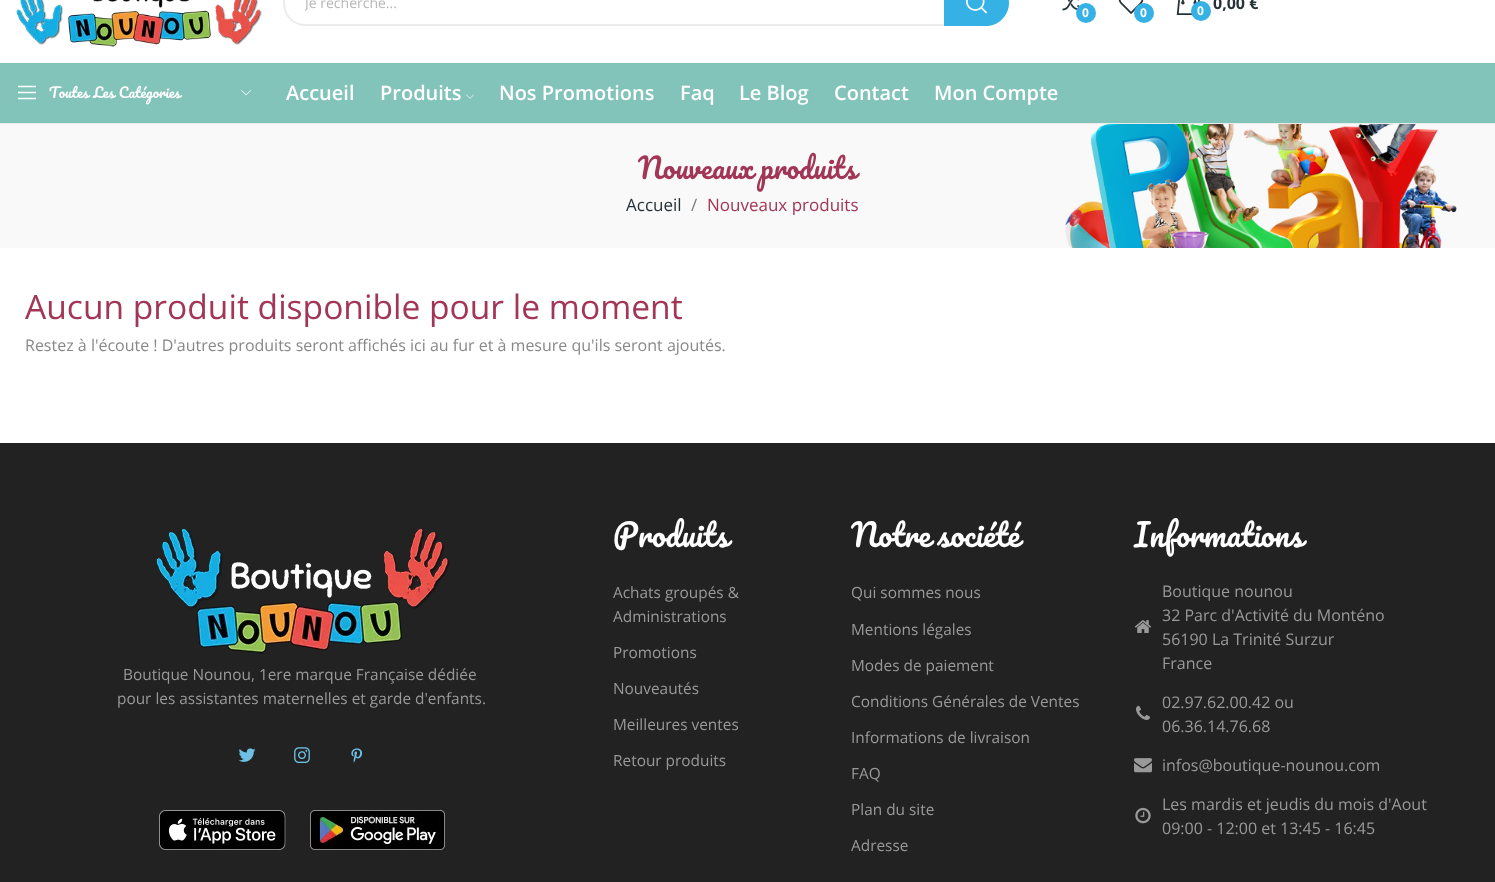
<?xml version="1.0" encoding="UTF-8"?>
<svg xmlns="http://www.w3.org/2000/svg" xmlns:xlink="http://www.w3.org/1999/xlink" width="1495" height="882">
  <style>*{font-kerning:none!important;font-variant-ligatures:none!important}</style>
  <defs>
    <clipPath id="clip1"><rect x="305" width="615" height="12" /></clipPath>
  </defs>
  <rect width="100%" height="100%" fill="#ffffff" />
  <rect y="123" width="1495" height="1" fill="#ebebeb" />
  <image x="16" y="0" width="246" height="47" xlink:href="image1.png" />
  <path d="M 306 -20 h 638 v 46 h -638 c -13 0 -23 -10 -23 -23 c 0 -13 10 -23 23 -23 z m 0 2 h 638 v 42 h -638 c -28 0 -28 -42 0 -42 z" fill="#ebebeb" fill-rule="evenodd" />
  <path d="M 944 -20 h 42 c 12.5 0 23 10.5 23 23 c 0 12.5 -10.5 23 -23 23 h -42 z" fill="#35b1e5" />
  <image x="966" y="0" width="21" height="14" xlink:href="image2.png" />
  <image x="1062" y="0" width="18" height="11" xlink:href="image3.png" />
  <circle cx="1086" cy="13" r="10" fill="#35b1e5" />
  <image x="1118" y="0" width="26" height="14" xlink:href="image4.png" />
  <circle cx="1144" cy="13" r="10" fill="#35b1e5" />
  <image x="1176" y="0" width="24" height="15" xlink:href="image5.png" />
  <circle cx="1201" cy="11" r="10" fill="#35b1e5" />
  <rect y="63" width="1495" height="60" fill="#82c3ba" />
  <image x="18" y="85" width="18" height="15" xlink:href="image6.png" />
  <image x="241" y="90" width="10" height="6" xlink:href="image7.png" />
  <image x="466" y="94" width="8" height="5" xlink:href="image8.png" />
  <image x="0" y="124" width="1495" height="124" xlink:href="image9.png" />
  <rect y="443" width="1495" height="439" fill="#222222" />
  <image x="156" y="528" width="294" height="126" xlink:href="image10.png" />
  <image x="238" y="748" width="18" height="14" xlink:href="image11.png" />
  <image x="294" y="747" width="16" height="16" xlink:href="image12.png" />
  <image x="351" y="748" width="12" height="15" xlink:href="image13.png" />
  <image x="159" y="810" width="127" height="40" xlink:href="image14.png" />
  <image x="310" y="810" width="135" height="40" xlink:href="image15.png" />
  <image x="1135" y="620" width="16" height="13" xlink:href="image16.png" />
  <image x="1135" y="705" width="15" height="15" xlink:href="image17.png" />
  <image x="1134" y="758" width="18" height="15" xlink:href="image18.png" />
  <image x="1135" y="807" width="16" height="17" xlink:href="image19.png" />
  <g clip-path="url(#clip1)">
    <text x="305" y="8" style="font-family: Open Sans; font-size: 14px; fill: #b7b7b7">Je recherche...</text>
  </g>
  <text x="1082" y="17" style="font-family: Open Sans; font-size: 12px; font-weight: bold; fill: #ffffff">0</text>
  <text x="1140" y="17" style="font-family: Open Sans; font-size: 12px; font-weight: bold; fill: #ffffff">0</text>
  <text x="1197" y="15" style="font-family: Open Sans; font-size: 12px; font-weight: bold; fill: #ffffff">0</text>
  <text x="1213" y="9" style="font-family: Open Sans; font-size: 16px; font-weight: bold; fill: #253237">0,00 €</text>
  <text x="49" y="98" word-spacing="1" style="font-family: Pacifico; font-size: 14px; fill: #ffffff">Toutes Les Catégories</text>
  <text x="286" y="100" style="font-family: Open Sans; font-size: 20px; font-weight: 600; fill: #ffffff">Accueil</text>
  <text x="380" y="100" style="font-family: Open Sans; font-size: 20px; font-weight: 600; fill: #ffffff">Produits</text>
  <text x="499" y="100" style="font-family: Open Sans; font-size: 20px; font-weight: 600; fill: #ffffff">Nos Promotions</text>
  <text x="680" y="100" style="font-family: Open Sans; font-size: 20px; font-weight: 600; fill: #ffffff">Faq</text>
  <text x="739" y="100" style="font-family: Open Sans; font-size: 20px; font-weight: 600; fill: #ffffff">Le Blog</text>
  <text x="834" y="100" style="font-family: Open Sans; font-size: 20px; font-weight: 600; fill: #ffffff">Contact</text>
  <text x="934" y="100" style="font-family: Open Sans; font-size: 20px; font-weight: 600; fill: #ffffff">Mon Compte</text>
  <text x="638" y="179" style="font-family: Pacifico; font-size: 28px; fill: #a23656">Nouveaux produits</text>
  <text x="626" y="211" style="font-family: Open Sans; font-size: 17px; fill: #253237">Accueil</text>
  <text x="691" y="211" style="font-family: Open Sans; font-size: 17px; fill: #7a7a7a">/</text>
  <text x="707" y="211" style="font-family: Open Sans; font-size: 17px; fill: #a23656">Nouveaux produits</text>
  <text x="25" y="319" style="font-family: Open Sans; font-size: 33.6px; fill: #a23656">Aucun produit disponible pour le moment</text>
  <text x="25" y="351" style="font-family: Open Sans; font-size: 16px; fill: #888888">Restez à l'écoute ! D'autres produits seront affichés ici au fur et à mesure qu'ils seront ajoutés.</text>
  <text x="123" y="680" style="font-family: Open Sans; font-size: 15.4px; fill: #999999">Boutique Nounou, 1ere marque Française dédiée</text>
  <text x="117" y="704" style="font-family: Open Sans; font-size: 15.4px; fill: #999999">pour les assistantes maternelles et garde d'enfants.</text>
  <text x="613" y="547" style="font-family: Pacifico; font-size: 30.75px; fill: #ffffff">Produits</text>
  <text x="613" y="598" style="font-family: Open Sans; font-size: 15.4px; fill: #999999">Achats groupés &amp;</text>
  <text x="613" y="622" style="font-family: Open Sans; font-size: 15.4px; fill: #999999">Administrations</text>
  <text x="613" y="658" style="font-family: Open Sans; font-size: 15.4px; fill: #999999">Promotions</text>
  <text x="613" y="694" style="font-family: Open Sans; font-size: 15.4px; fill: #999999">Nouveautés</text>
  <text x="613" y="730" style="font-family: Open Sans; font-size: 15.4px; fill: #999999">Meilleures ventes</text>
  <text x="613" y="766" style="font-family: Open Sans; font-size: 15.4px; fill: #999999">Retour produits</text>
  <text x="851" y="547" word-spacing="-1" style="font-family: Pacifico; font-size: 30.75px; fill: #ffffff">Notre société</text>
  <text x="851" y="598" style="font-family: Open Sans; font-size: 15.4px; fill: #999999">Qui sommes nous</text>
  <text x="851" y="635" style="font-family: Open Sans; font-size: 15.4px; fill: #999999">Mentions légales</text>
  <text x="851" y="671" style="font-family: Open Sans; font-size: 15.4px; fill: #999999">Modes de paiement</text>
  <text x="851" y="707" style="font-family: Open Sans; font-size: 15.4px; fill: #999999">Conditions Générales de Ventes</text>
  <text x="851" y="743" style="font-family: Open Sans; font-size: 15.4px; fill: #999999">Informations de livraison</text>
  <text x="851" y="779" style="font-family: Open Sans; font-size: 15.4px; fill: #999999">FAQ</text>
  <text x="851" y="815" style="font-family: Open Sans; font-size: 15.4px; fill: #999999">Plan du site</text>
  <text x="851" y="851" style="font-family: Open Sans; font-size: 15.4px; fill: #999999">Adresse</text>
  <text x="1134" y="547" style="font-family: Pacifico; font-size: 30.75px; fill: #ffffff">Informations</text>
  <text x="1162" y="597" style="font-family: Open Sans; font-size: 16px; fill: #999999">Boutique nounou</text>
  <text x="1162" y="621" style="font-family: Open Sans; font-size: 16px; fill: #999999">32 Parc d'Activité du Monténo</text>
  <text x="1162" y="645" style="font-family: Open Sans; font-size: 16px; fill: #999999">56190 La Trinité Surzur</text>
  <text x="1162" y="669" style="font-family: Open Sans; font-size: 16px; fill: #999999">France</text>
  <text x="1162" y="708" style="font-family: Open Sans; font-size: 16px; fill: #999999">02.97.62.00.42 ou</text>
  <text x="1162" y="732" style="font-family: Open Sans; font-size: 16px; fill: #999999">06.36.14.76.68</text>
  <text x="1162" y="771" style="font-family: Open Sans; font-size: 16px; fill: #999999">infos@boutique-nounou.com</text>
  <text x="1162" y="810" style="font-family: Open Sans; font-size: 16px; fill: #999999">Les mardis et jeudis du mois d'Aout</text>
  <text x="1162" y="834" style="font-family: Open Sans; font-size: 16px; fill: #999999">09:00 - 12:00 et 13:45 - 16:45</text>
</svg>
